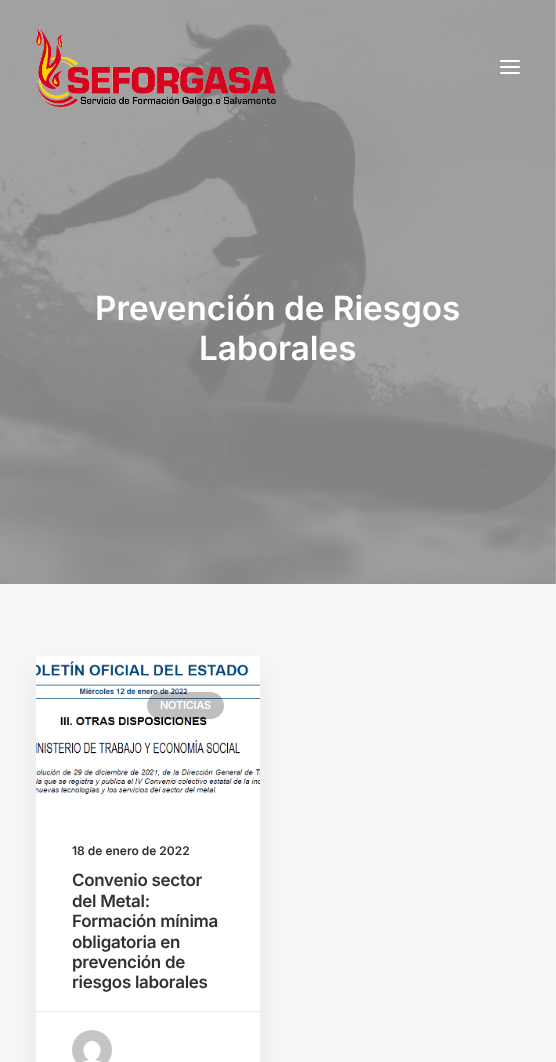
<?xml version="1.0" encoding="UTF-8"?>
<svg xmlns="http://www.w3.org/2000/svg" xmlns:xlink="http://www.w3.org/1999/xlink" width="556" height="1062">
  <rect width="100%" height="100%" fill="#ffffff" />
  <image x="0" y="0" width="556" height="584" xlink:href="image2.png" />
  <image x="36" y="27" width="240" height="80" xlink:href="image1.png" />
  <rect x="500" y="66" width="20" height="2" rx="1" fill="#ffffff" />
  <rect x="500" y="60" width="20" height="2" rx="1" fill="#ffffff" />
  <rect x="500" y="72" width="20" height="2" rx="1" fill="#ffffff" />
  <rect y="584" width="556" height="478" fill="#f7f7f7" />
  <rect x="36" y="671" width="224" height="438" rx="2" fill="#000000" fill-opacity="0.07" filter="blur(15px)" />
  <rect x="36" y="656" width="224" height="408" rx="2" fill="#ffffff" />
  <image x="36" y="661" width="224" height="133" xlink:href="image3.png" />
  <rect x="147" y="692" width="77" height="27" rx="13.5" fill="#000000" fill-opacity="0.25" />
  <rect x="36" y="1011" width="224" height="1" fill="#eaeaea" />
  <image x="72" y="1030" width="40" height="32" xlink:href="image4.png" />
  <text x="95" y="320" style="font-family: Inter; font-size: 33.25px; font-weight: 600; fill: #ffffff">Prevención de Riesgos</text>
  <text x="199" y="360" style="font-family: Inter; font-size: 33.25px; font-weight: 600; fill: #ffffff">Laborales</text>
  <text x="160" y="709" style="font-family: Inter; font-size: 11px; font-weight: 600; letter-spacing: -0.25px; fill: #ffffff">NOTICIAS</text>
  <text x="72" y="855" style="font-family: Inter; font-size: 12px; font-weight: 600; fill: #303133">18 de enero de 2022</text>
  <text x="72" y="886" style="font-family: Inter; font-size: 17px; font-weight: 600; letter-spacing: -0.3px; fill: #303133">Convenio sector</text>
  <text x="72" y="907" style="font-family: Inter; font-size: 17px; font-weight: 600; letter-spacing: -0.3px; fill: #303133">del Metal:</text>
  <text x="72" y="927" style="font-family: Inter; font-size: 17px; font-weight: 600; letter-spacing: -0.3px; fill: #303133">Formación mínima</text>
  <text x="72" y="948" style="font-family: Inter; font-size: 17px; font-weight: 600; letter-spacing: -0.3px; fill: #303133">obligatoria en</text>
  <text x="72" y="968" style="font-family: Inter; font-size: 17px; font-weight: 600; letter-spacing: -0.3px; fill: #303133">prevención de</text>
  <text x="72" y="988" style="font-family: Inter; font-size: 17px; font-weight: 600; letter-spacing: -0.3px; fill: #303133">riesgos laborales</text>
</svg>
